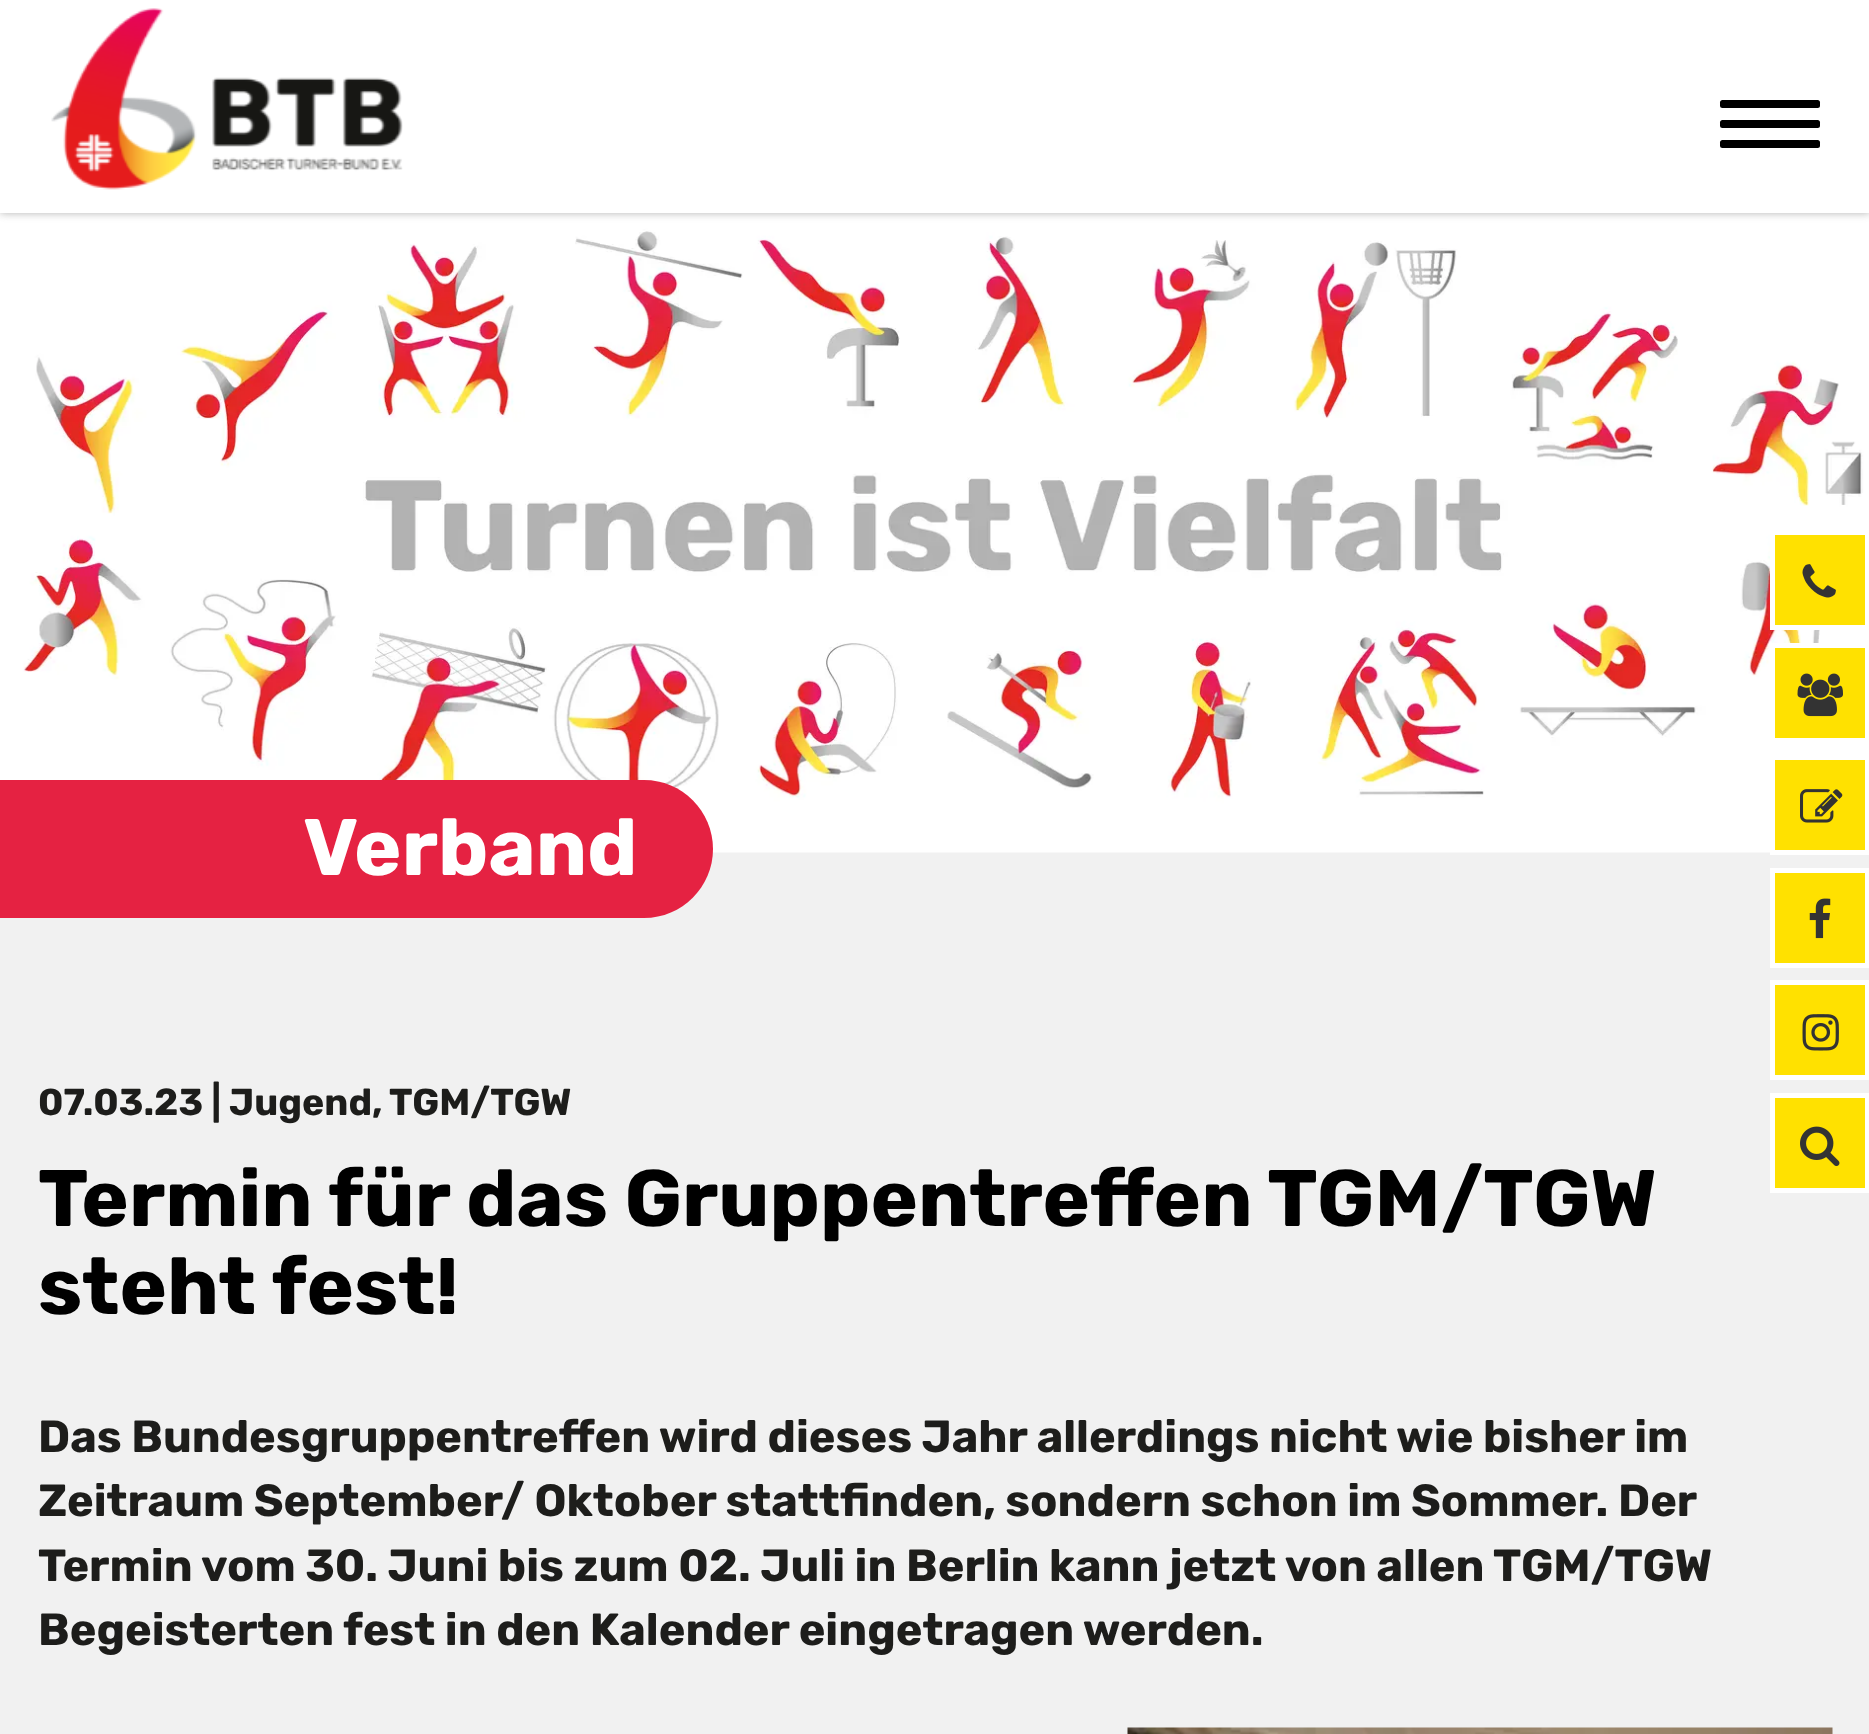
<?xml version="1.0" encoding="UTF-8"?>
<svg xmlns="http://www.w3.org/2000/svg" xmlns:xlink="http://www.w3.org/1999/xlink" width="1869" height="1734">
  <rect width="100%" height="100%" fill="#f1f1f1" />
  <image x="0" y="213" width="1869" height="640" xlink:href="image2.png" />
  <rect width="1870" height="213" fill="#b2b2b1" filter="blur(4px)" />
  <rect width="1869" height="213" fill="#ffffff" />
  <image x="51" y="8" width="352" height="182" xlink:href="image1.png" />
  <rect x="1720" y="100" width="100" height="8" rx="2.5" fill="#000000" />
  <rect x="1720" y="120" width="100" height="8" rx="2.5" fill="#000000" />
  <rect x="1720" y="140" width="100" height="8" rx="2.5" fill="#000000" />
  <path d="M -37 780 h 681 c 38 0 69 31 69 69 c 0 38 -31 69 -69 69 h -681 z" fill="#e52242" />
  <rect x="1772.5" y="532.5" width="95" height="95" fill="#ffe100" stroke="#ffffff" stroke-width="5" />
  <image x="1802" y="564" width="34" height="34" xlink:href="image3.png" />
  <rect x="1772.5" y="645.5" width="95" height="95" fill="#ffe100" stroke="#ffffff" stroke-width="5" />
  <image x="1797" y="673" width="46" height="44" xlink:href="image4.png" />
  <rect x="1772.5" y="757.5" width="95" height="95" fill="#ffe100" stroke="#ffffff" stroke-width="5" />
  <image x="1800" y="789" width="43" height="34" xlink:href="image5.png" />
  <rect x="1772.5" y="870.5" width="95" height="95" fill="#ffe100" stroke="#ffffff" stroke-width="5" />
  <image x="1809" y="898" width="22" height="41" xlink:href="image6.png" />
  <rect x="1772.5" y="982.5" width="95" height="95" fill="#ffe100" stroke="#ffffff" stroke-width="5" />
  <image x="1802" y="1014" width="37" height="37" xlink:href="image7.png" />
  <rect x="1772.5" y="1095.5" width="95" height="95" fill="#ffe100" stroke="#ffffff" stroke-width="5" />
  <image x="1800" y="1126" width="40" height="41" xlink:href="image8.png" />
  <image x="1127" y="1727" width="706" height="7" xlink:href="image9.png" />
  <text x="303" y="875" style="font-family: Rubik; font-size: 80px; font-weight: bold; fill: #ffffff">Verband</text>
  <text x="38" y="1115" style="font-family: Rubik; font-size: 37.5px; font-weight: bold; fill: #1d1d1b">07.03.23 | Jugend,</text>
  <text x="389" y="1115" style="font-family: Rubik; font-size: 37.5px; font-weight: bold; fill: #1d1d1b">TGM/TGW</text>
  <text x="38" y="1226" word-spacing="-0.5" style="font-family: Rubik; font-size: 80px; font-weight: bold; fill: #000000">Termin für das Gruppentreffen TGM/TGW</text>
  <text x="38" y="1314" style="font-family: Rubik; font-size: 80px; font-weight: bold; fill: #000000">steht fest!</text>
  <text x="38" y="1452" style="font-family: Rubik; font-size: 45px; font-weight: bold; fill: #1d1d1b">Das Bundesgruppentreffen wird dieses Jahr allerdings nicht wie bisher im</text>
  <text x="38" y="1516" style="font-family: Rubik; font-size: 45px; font-weight: bold; fill: #1d1d1b">Zeitraum September/ Oktober stattfinden, sondern schon im Sommer. Der</text>
  <text x="38" y="1581" style="font-family: Rubik; font-size: 45px; font-weight: bold; fill: #1d1d1b">Termin vom 30. Juni bis zum 02. Juli in Berlin kann jetzt von allen TGM/TGW</text>
  <text x="38" y="1645" style="font-family: Rubik; font-size: 45px; font-weight: bold; fill: #1d1d1b">Begeisterten fest in den Kalender eingetragen werden.</text>
</svg>
